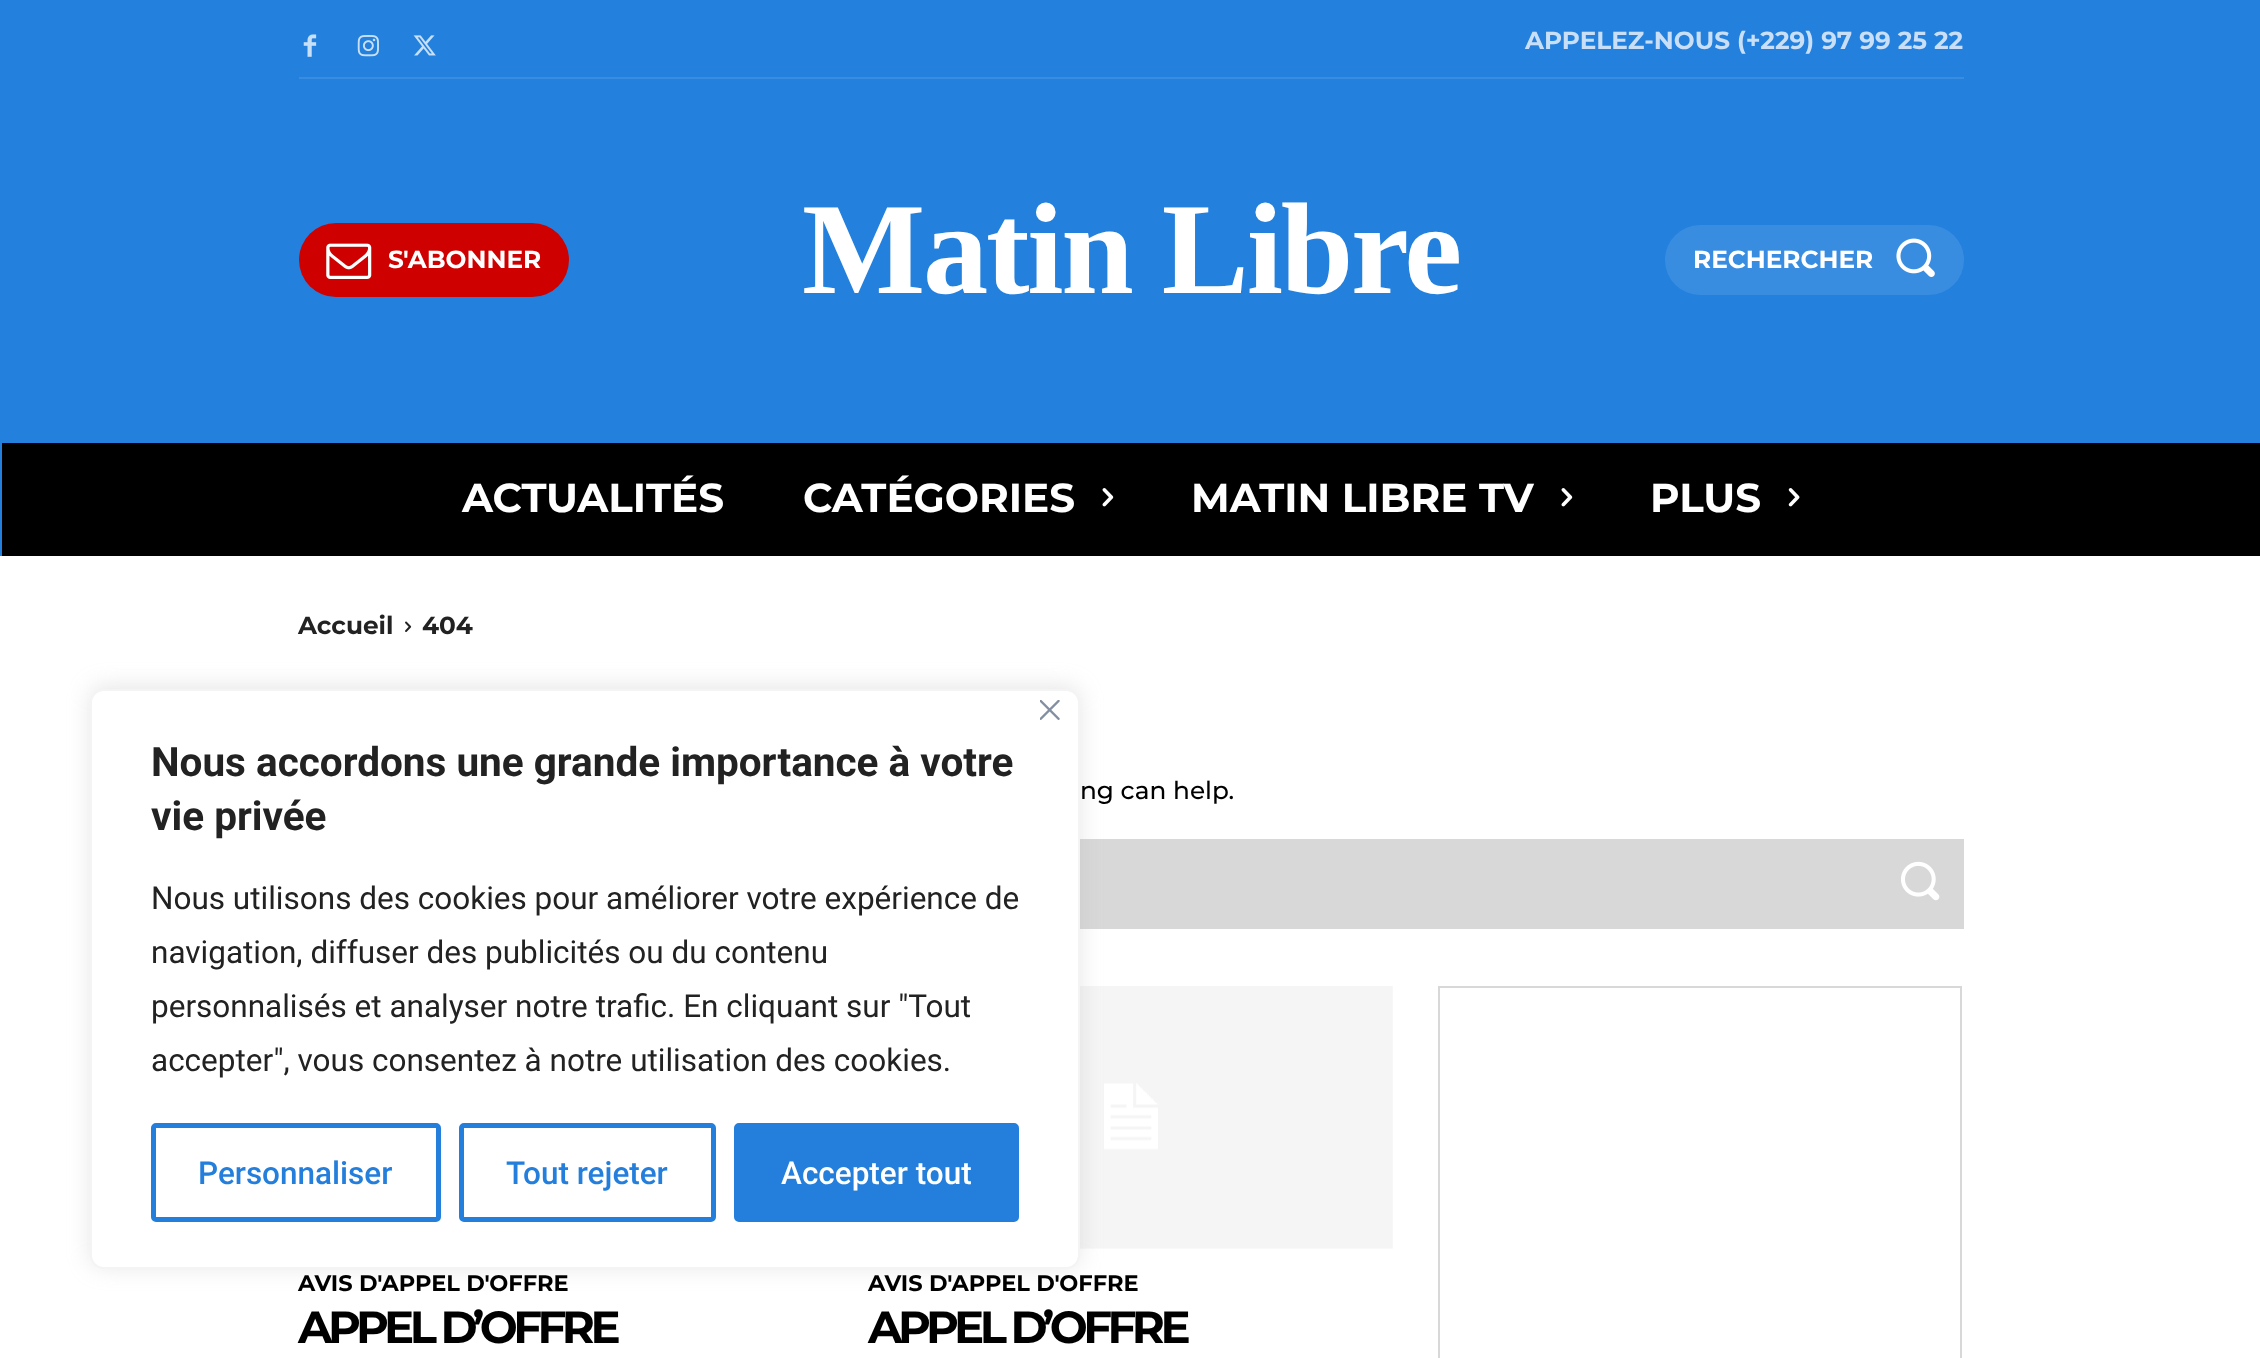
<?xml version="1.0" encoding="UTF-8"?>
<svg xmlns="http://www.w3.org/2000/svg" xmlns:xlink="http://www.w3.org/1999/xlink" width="2260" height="1358">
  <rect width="100%" height="100%" fill="#ffffff" />
  <rect width="2260" height="556" fill="#2380dd" />
  <rect x="299" y="77" width="1665" height="2" fill="#398de0" />
  <image x="303" y="34" width="14" height="23" xlink:href="image1.png" />
  <image x="357" y="35" width="22" height="22" xlink:href="image2.png" />
  <image x="413" y="35" width="23" height="21" xlink:href="image3.png" />
  <rect x="299" y="223" width="270" height="74" rx="37" fill="#ce0000" />
  <image x="326" y="243" width="46" height="36" xlink:href="image4.png" />
  <rect x="1665" y="225" width="299" height="70" rx="35" fill="#398de0" />
  <image x="1896" y="238" width="39" height="39" xlink:href="image5.png" />
  <rect x="2" y="443" width="2258" height="113" fill="#000000" />
  <image x="1102" y="488" width="12" height="19" xlink:href="image6.png" />
  <image x="1561" y="488" width="12" height="19" xlink:href="image6.png" />
  <image x="1788" y="488" width="12" height="19" xlink:href="image7.png" />
  <image x="405" y="621" width="7" height="11" xlink:href="image8.png" />
  <rect x="1080" y="839" width="884" height="90" fill="#d8d8d8" />
  <image x="1901" y="861" width="39" height="40" xlink:href="image9.png" />
  <image x="1080" y="986" width="313" height="263" xlink:href="image10.png" />
  <rect x="1439" y="987" width="522" height="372" fill="none" stroke="#d8d8d8" stroke-width="2" />
  <rect x="90" y="686" width="990" height="581" rx="14" fill="#acabab" fill-opacity="0.3" filter="blur(11px)" />
  <rect x="91" y="690" width="988" height="578" rx="13" fill="#ffffff" stroke="#f4f4f4" stroke-width="2" />
  <image x="1040" y="700" width="20" height="20" xlink:href="image11.png" />
  <rect x="153.5" y="1125.5" width="285" height="94" rx="2.5" fill="none" stroke="#247fdc" stroke-width="5" />
  <rect x="461.5" y="1125.5" width="252" height="94" rx="2.5" fill="none" stroke="#247fdc" stroke-width="5" />
  <rect x="736.5" y="1125.5" width="280" height="94" rx="2.5" fill="#247fdc" stroke="#247fdc" stroke-width="5" />
  <text x="1525" y="49" style="font-family: Montserrat; font-size: 24.75px; font-weight: bold; fill: #c8dff7">APPELEZ-NOUS (+229) 97 99 25 22</text>
  <text x="388" y="268" style="font-family: Montserrat; font-size: 24.75px; font-weight: bold; fill: #ffffff">S'ABONNER</text>
  <text x="802" y="293" style="font-family: Liberation Serif; font-size: 130.5px; font-weight: bold; letter-spacing: -2.25px; fill: #ffffff">Matin Libre</text>
  <text x="1693" y="268" style="font-family: Montserrat; font-size: 24.75px; font-weight: bold; fill: #ffffff">RECHERCHER</text>
  <text x="462" y="512" style="font-family: Montserrat; font-size: 40.5px; font-weight: bold; fill: #ffffff">ACTUALITÉS</text>
  <text x="803" y="512" style="font-family: Montserrat; font-size: 40.5px; font-weight: bold; fill: #ffffff">CATÉGORIES</text>
  <text x="1191" y="512" style="font-family: Montserrat; font-size: 40.5px; font-weight: bold; fill: #ffffff">MATIN LIBRE TV</text>
  <text x="1650" y="512" style="font-family: Montserrat; font-size: 40.5px; font-weight: bold; fill: #ffffff">PLUS</text>
  <text x="298" y="634" style="font-family: Montserrat; font-size: 24.75px; font-weight: bold; fill: #222222">Accueil</text>
  <text x="422" y="634" style="font-family: Montserrat; font-size: 24.75px; font-weight: bold; fill: #222222">404</text>
  <text x="1080" y="799" style="font-family: Montserrat; font-size: 24.75px; font-weight: 500; fill: #000000">ng can help.</text>
  <text x="298" y="1291" style="font-family: Montserrat; font-size: 22.5px; font-weight: bold; fill: #000000">AVIS D'APPEL D'OFFRE</text>
  <text x="298" y="1343" style="font-family: Montserrat; font-size: 45px; font-weight: bold; letter-spacing: -4.5px; fill: #000000">APPEL D’OFFRE</text>
  <text x="868" y="1291" style="font-family: Montserrat; font-size: 22.5px; font-weight: bold; fill: #000000">AVIS D'APPEL D'OFFRE</text>
  <text x="868" y="1343" style="font-family: Montserrat; font-size: 45px; font-weight: bold; letter-spacing: -4.5px; fill: #000000">APPEL D’OFFRE</text>
  <text x="151" y="776" style="font-family: Roboto; font-size: 40.5px; font-weight: bold; fill: #222222">Nous accordons une grande importance à votre</text>
  <text x="151" y="830" style="font-family: Roboto; font-size: 40.5px; font-weight: bold; fill: #222222">vie privée</text>
  <text x="151" y="909" style="font-family: Roboto; font-size: 31.5px; fill: #222222">Nous utilisons des cookies pour améliorer votre expérience de</text>
  <text x="151" y="963" style="font-family: Roboto; font-size: 31.5px; fill: #222222">navigation, diffuser des publicités ou du contenu</text>
  <text x="151" y="1017" style="font-family: Roboto; font-size: 31.5px; fill: #222222">personnalisés et analyser notre trafic. En cliquant sur "Tout</text>
  <text x="151" y="1071" style="font-family: Roboto; font-size: 31.5px; fill: #222222">accepter", vous consentez à notre utilisation des cookies.</text>
  <text x="198" y="1184" style="font-family: Roboto; font-size: 31.5px; font-weight: 500; fill: #247fdc">Personnaliser</text>
  <text x="506" y="1184" style="font-family: Roboto; font-size: 31.5px; font-weight: 500; fill: #247fdc">Tout rejeter</text>
  <text x="781" y="1184" style="font-family: Roboto; font-size: 31.5px; font-weight: 500; fill: #ffffff">Accepter tout</text>
</svg>
